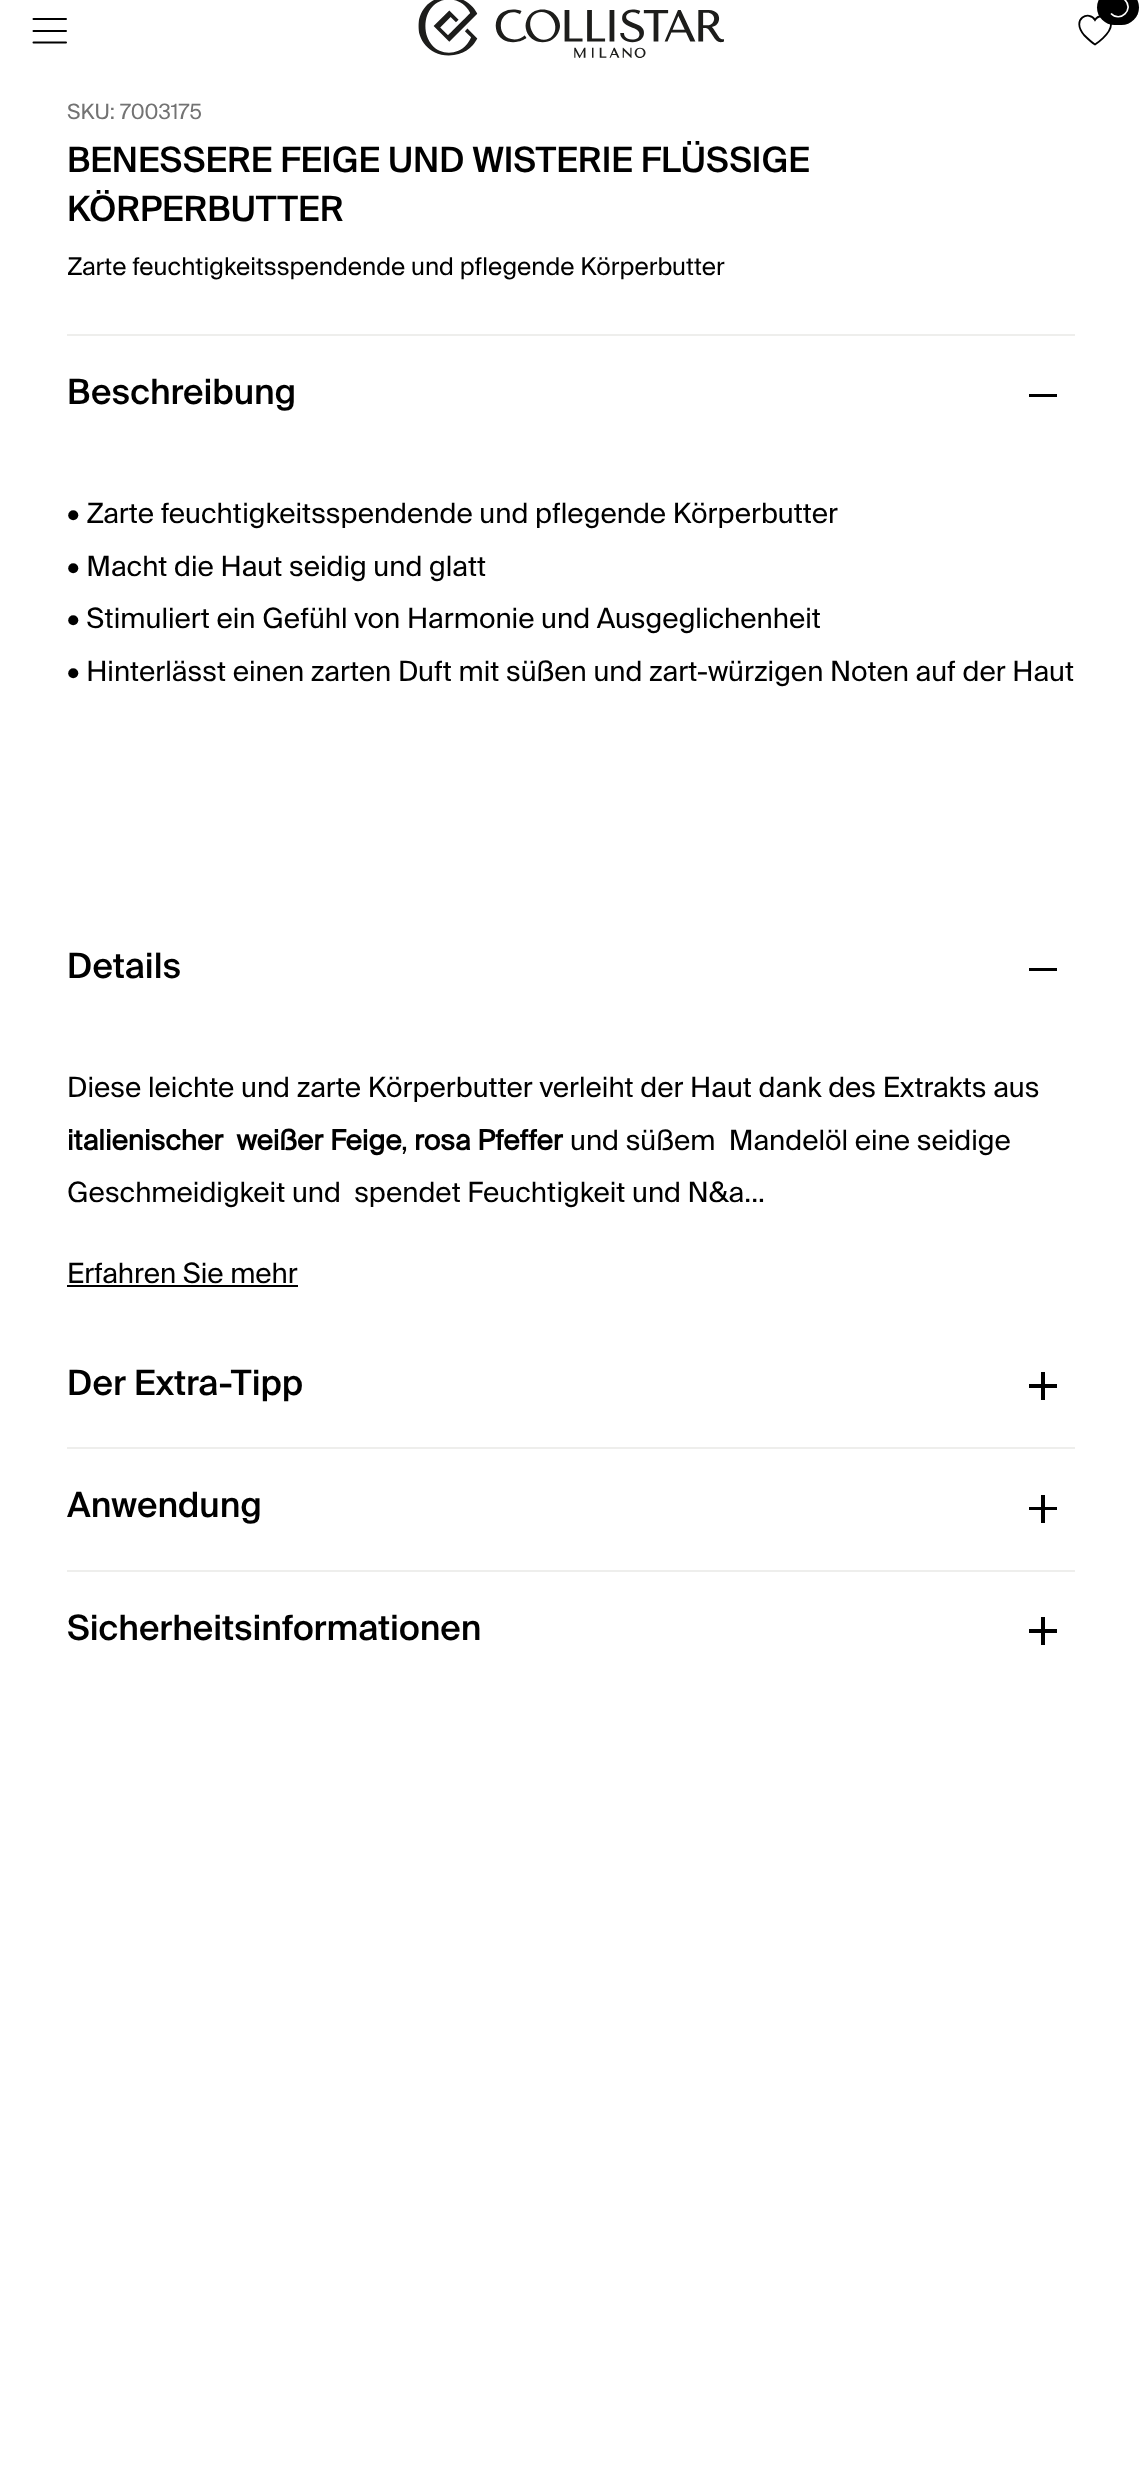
<?xml version="1.0" encoding="UTF-8"?>
<svg xmlns="http://www.w3.org/2000/svg" xmlns:xlink="http://www.w3.org/1999/xlink" width="1141" height="2481">
  <rect width="100%" height="100%" fill="#ffffff" />
  <path d="M 33.5 31 h 32.5 m -32.5 11.5 h 32.5 m -32.5 -23.5 h 32.5" fill="none" stroke="#000000" stroke-width="2" stroke-linecap="round" />
  <image x="418" y="0" width="306" height="58" xlink:href="image1.png" />
  <path d="M 1102.5 16 c -3 0 -6 1.5 -7.5 4 c -5.5 -10 -24.5 -1.5 -11 15 c 3.5 3.5 7 7 11 9.5 c 0 0 16 -10.5 16 -20 c 0 -5 -3.5 -8.5 -8.5 -8.5 z" fill="none" stroke="#000000" stroke-width="1.8" stroke-linecap="round" />
  <rect x="1097" y="-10" width="42" height="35" rx="17.5" fill="#000000" />
  <path d="M 1118 -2.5 c 3 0 5.5 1 7 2.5 c 9.5 9.5 -5 23 -14 13.5" fill="none" stroke="#ffffff" stroke-width="1.7" />
  <rect x="67" y="334" width="1008" height="2" fill="#eeeeec" />
  <rect x="1029" y="394" width="28" height="3" fill="#000000" />
  <rect x="1029" y="968" width="28" height="3" fill="#000000" />
  <rect x="67" y="1285" width="231" height="2" fill="#000000" />
  <rect x="1041" y="1372" width="4" height="28" fill="#000000" />
  <rect x="1029" y="1384" width="28" height="4" fill="#000000" />
  <rect x="67" y="1447" width="1008" height="2" fill="#eeeeec" />
  <rect x="1041" y="1495" width="4" height="28" fill="#000000" />
  <rect x="1029" y="1507" width="28" height="3" fill="#000000" />
  <rect x="67" y="1570" width="1008" height="2" fill="#eeeeec" />
  <rect x="1041" y="1617" width="4" height="28" fill="#000000" />
  <rect x="1029" y="1629" width="28" height="4" fill="#000000" />
  <text x="67" y="119" style="font-family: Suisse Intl; font-size: 21px; fill: #737373">SKU: 7003175</text>
  <text x="67" y="172" style="font-family: Suisse Intl; font-size: 35px; font-weight: 500; fill: #000000">BENESSERE FEIGE UND WISTERIE FLÜSSIGE</text>
  <text x="67" y="221" style="font-family: Suisse Intl; font-size: 35px; font-weight: 500; fill: #000000">KÖRPERBUTTER</text>
  <text x="67" y="275" style="font-family: Suisse Intl; font-size: 24.5px; fill: #000000">Zarte feuchtigkeitsspendende und pflegende Körperbutter</text>
  <text x="67" y="404" style="font-family: Suisse Intl; font-size: 35px; font-weight: 500; fill: #000000">Beschreibung</text>
  <text x="67" y="523" style="font-family: Suisse Intl; font-size: 28px; fill: #000000">• Zarte feuchtigkeitsspendende und pflegende Körperbutter</text>
  <text x="67" y="576" style="font-family: Suisse Intl; font-size: 28px; fill: #000000">• Macht die Haut seidig und glatt</text>
  <text x="67" y="628" style="font-family: Suisse Intl; font-size: 28px; fill: #000000">• Stimuliert ein Gefühl von Harmonie und Ausgeglichenheit</text>
  <text x="67" y="681" style="font-family: Suisse Intl; font-size: 28px; fill: #000000">• Hinterlässt einen zarten Duft mit süßen und zart-würzigen Noten auf der Haut</text>
  <text x="67" y="978" style="font-family: Suisse Intl; font-size: 35px; font-weight: 500; fill: #000000">Details</text>
  <text x="67" y="1097" style="font-family: Suisse Intl; font-size: 28px; fill: #000000">Diese leichte und zarte Körperbutter verleiht der Haut dank des Extrakts aus</text>
  <text x="67" y="1150" style="font-family: Suisse Intl; font-size: 28px; font-weight: bold; fill: #000000" xml:space="preserve">italienischer  weißer Feige</text>
  <text x="401" y="1150" style="font-family: Suisse Intl; font-size: 28px; fill: #000000">,</text>
  <text x="414" y="1150" style="font-family: Suisse Intl; font-size: 28px; font-weight: bold; fill: #000000">rosa Pfeffer</text>
  <text x="570" y="1150" style="font-family: Suisse Intl; font-size: 28px; fill: #000000" xml:space="preserve">und süßem  Mandelöl eine seidige</text>
  <text x="67" y="1202" style="font-family: Suisse Intl; font-size: 28px; fill: #000000" xml:space="preserve">Geschmeidigkeit und  spendet Feuchtigkeit und N&amp;a...</text>
  <text x="67" y="1283" style="font-family: Suisse Intl; font-size: 28px; fill: #000000">Erfahren Sie mehr</text>
  <text x="67" y="1395" style="font-family: Suisse Intl; font-size: 35px; font-weight: 500; fill: #000000">Der Extra-Tipp</text>
  <text x="67" y="1517" style="font-family: Suisse Intl; font-size: 35px; font-weight: 500; fill: #000000">Anwendung</text>
  <text x="67" y="1640" style="font-family: Suisse Intl; font-size: 35px; font-weight: 500; fill: #000000">Sicherheitsinformationen</text>
</svg>
